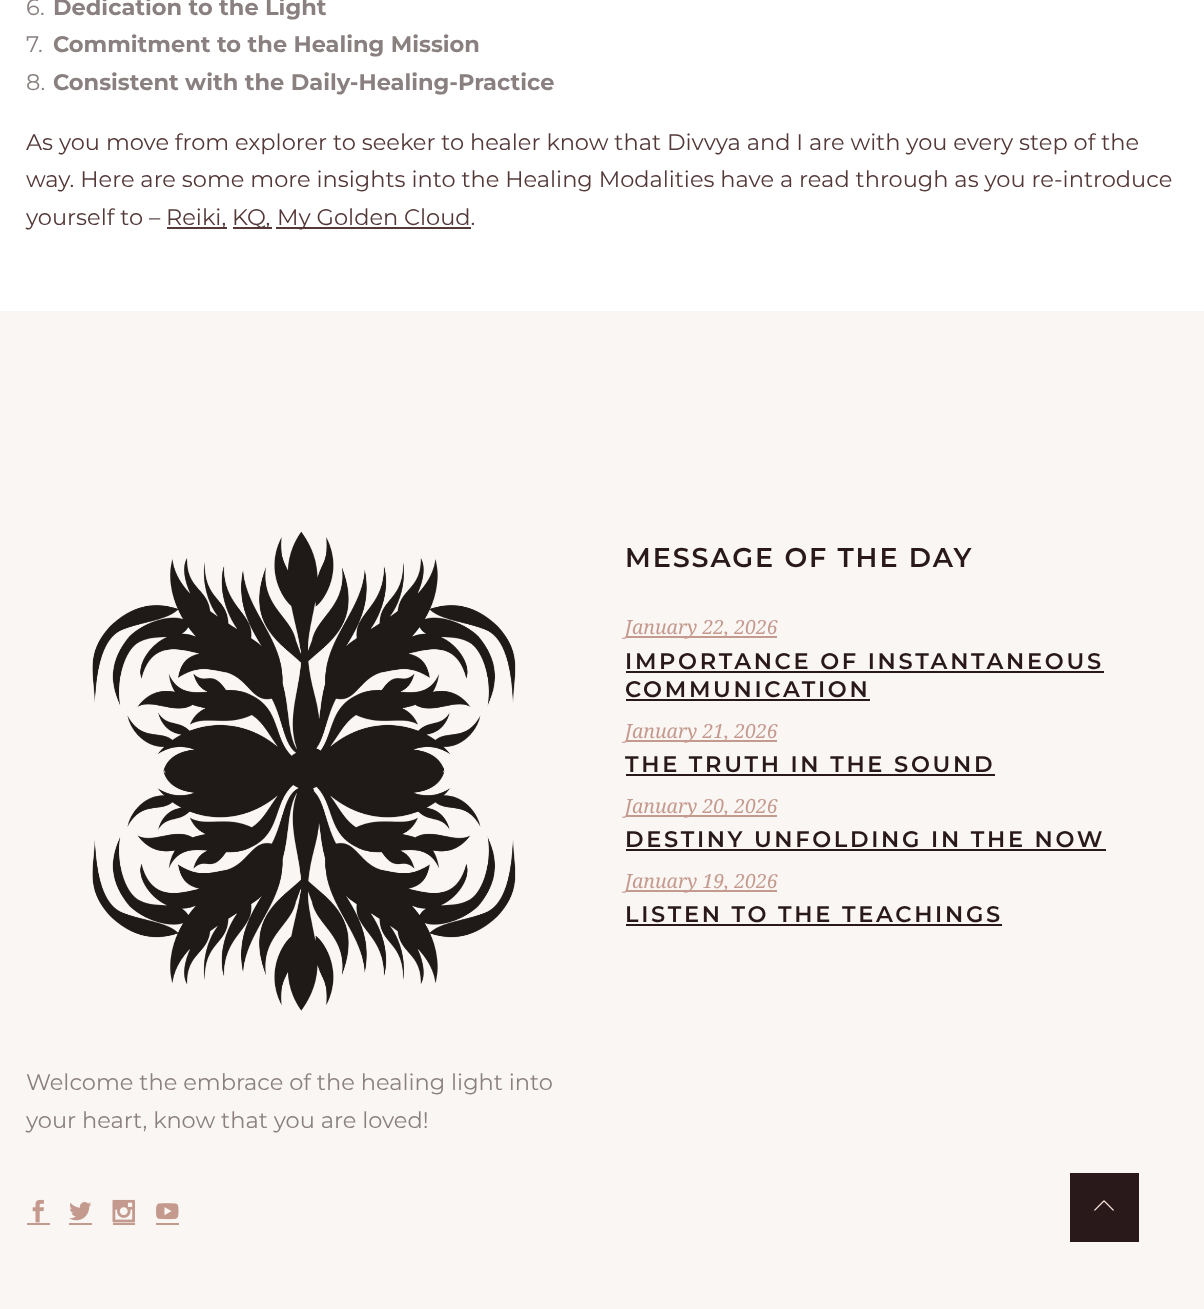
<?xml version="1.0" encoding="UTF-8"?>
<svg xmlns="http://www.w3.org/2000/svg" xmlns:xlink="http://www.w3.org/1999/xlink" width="1204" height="1309">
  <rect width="100%" height="100%" fill="#ffffff" />
  <rect x="167" y="227" width="60" height="2" fill="#543838" />
  <rect x="233" y="227" width="39" height="2" fill="#543838" />
  <rect x="276" y="227" width="195" height="2" fill="#543838" />
  <rect y="311" width="1204" height="998" fill="#faf6f4" />
  <rect x="626" y="636" width="151" height="2" fill="#c59a8e" />
  <rect x="626" y="671" width="478" height="2" fill="#29191a" />
  <rect x="626" y="699" width="244" height="2" fill="#29191a" />
  <rect x="626" y="740" width="151" height="2" fill="#c59a8e" />
  <rect x="626" y="774" width="369" height="2" fill="#29191a" />
  <rect x="626" y="815" width="151" height="2" fill="#c59a8e" />
  <rect x="626" y="849" width="480" height="2" fill="#29191a" />
  <rect x="626" y="890" width="151" height="2" fill="#c59a8e" />
  <rect x="626" y="924" width="376" height="2" fill="#29191a" />
  <image x="92" y="531" width="424" height="480" xlink:href="image1.png" />
  <image x="32" y="1199" width="12" height="24" xlink:href="image2.png" />
  <rect x="27" y="1223" width="23" height="2" fill="#c59a8e" />
  <image x="69" y="1202" width="23" height="19" xlink:href="image3.png" />
  <rect x="69" y="1223" width="23" height="2" fill="#c59a8e" />
  <image x="112" y="1199" width="23" height="24" xlink:href="image4.png" />
  <rect x="113" y="1223" width="22" height="2" fill="#c59a8e" />
  <image x="156" y="1203" width="23" height="17" xlink:href="image5.png" />
  <rect x="156" y="1223" width="23" height="2" fill="#c59a8e" />
  <rect x="1070" y="1173" width="69" height="69" fill="#29191a" />
  <image x="1094" y="1200" width="20" height="11" xlink:href="image6.png" />
  <text x="26" y="15" style="font-family: Montserrat; font-size: 22.5px; fill: #8a8080">6.</text>
  <text x="53" y="15" style="font-family: Montserrat; font-size: 22.5px; font-weight: bold; fill: #8a8080">Dedication to the Light</text>
  <text x="26" y="52" style="font-family: Montserrat; font-size: 22.5px; fill: #8a8080">7.</text>
  <text x="53" y="52" style="font-family: Montserrat; font-size: 22.5px; font-weight: bold; fill: #8a8080">Commitment to the Healing Mission</text>
  <text x="26" y="90" style="font-family: Montserrat; font-size: 22.5px; fill: #8a8080">8.</text>
  <text x="53" y="90" style="font-family: Montserrat; font-size: 22.5px; font-weight: bold; fill: #8a8080">Consistent with the Daily-Healing-Practice</text>
  <text x="26" y="150" style="font-family: Montserrat; font-size: 22.5px; fill: #543838">As you move from explorer to seeker to healer know that Divvya and I are with you every step of the</text>
  <text x="26" y="187" style="font-family: Montserrat; font-size: 22.5px; fill: #543838">way. Here are some more insights into the Healing Modalities have a read through as you re-introduce</text>
  <text x="26" y="225" style="font-family: Montserrat; font-size: 22.5px; fill: #543838">yourself to –</text>
  <text x="166" y="225" style="font-family: Montserrat; font-size: 22.5px; fill: #543838">Reiki,</text>
  <text x="232" y="225" style="font-family: Montserrat; font-size: 22.5px; fill: #543838">KQ,</text>
  <text x="277" y="225" style="font-family: Montserrat; font-size: 22.5px; fill: #543838">My Golden Cloud.</text>
  <text x="625" y="567" style="font-family: Montserrat; font-size: 27px; font-weight: 600; letter-spacing: 1.9px; fill: #29191a">MESSAGE OF THE DAY</text>
  <text x="625" y="634" style="font-family: Noto Serif; font-size: 19.5px; font-style: italic; fill: #c59a8e">January 22, 2026</text>
  <text x="625" y="669" style="font-family: Montserrat; font-size: 22.5px; font-weight: 600; letter-spacing: 2.7px; fill: #29191a">IMPORTANCE OF INSTANTANEOUS</text>
  <text x="625" y="697" style="font-family: Montserrat; font-size: 22.5px; font-weight: 600; letter-spacing: 2.7px; fill: #29191a">COMMUNICATION</text>
  <text x="625" y="738" style="font-family: Noto Serif; font-size: 19.5px; font-style: italic; fill: #c59a8e">January 21, 2026</text>
  <text x="625" y="772" style="font-family: Montserrat; font-size: 22.5px; font-weight: 600; letter-spacing: 2.7px; fill: #29191a">THE TRUTH IN THE SOUND</text>
  <text x="625" y="813" style="font-family: Noto Serif; font-size: 19.5px; font-style: italic; fill: #c59a8e">January 20, 2026</text>
  <text x="625" y="847" style="font-family: Montserrat; font-size: 22.5px; font-weight: 600; letter-spacing: 2.7px; fill: #29191a">DESTINY UNFOLDING IN THE NOW</text>
  <text x="625" y="888" style="font-family: Noto Serif; font-size: 19.5px; font-style: italic; fill: #c59a8e">January 19, 2026</text>
  <text x="625" y="922" style="font-family: Montserrat; font-size: 22.5px; font-weight: 600; letter-spacing: 2.7px; fill: #29191a">LISTEN TO THE TEACHINGS</text>
  <text x="26" y="1090" style="font-family: Montserrat; font-size: 22.5px; fill: #8a8080">Welcome the embrace of the healing light into</text>
  <text x="26" y="1128" style="font-family: Montserrat; font-size: 22.5px; fill: #8a8080">your heart, know that you are loved!</text>
</svg>
